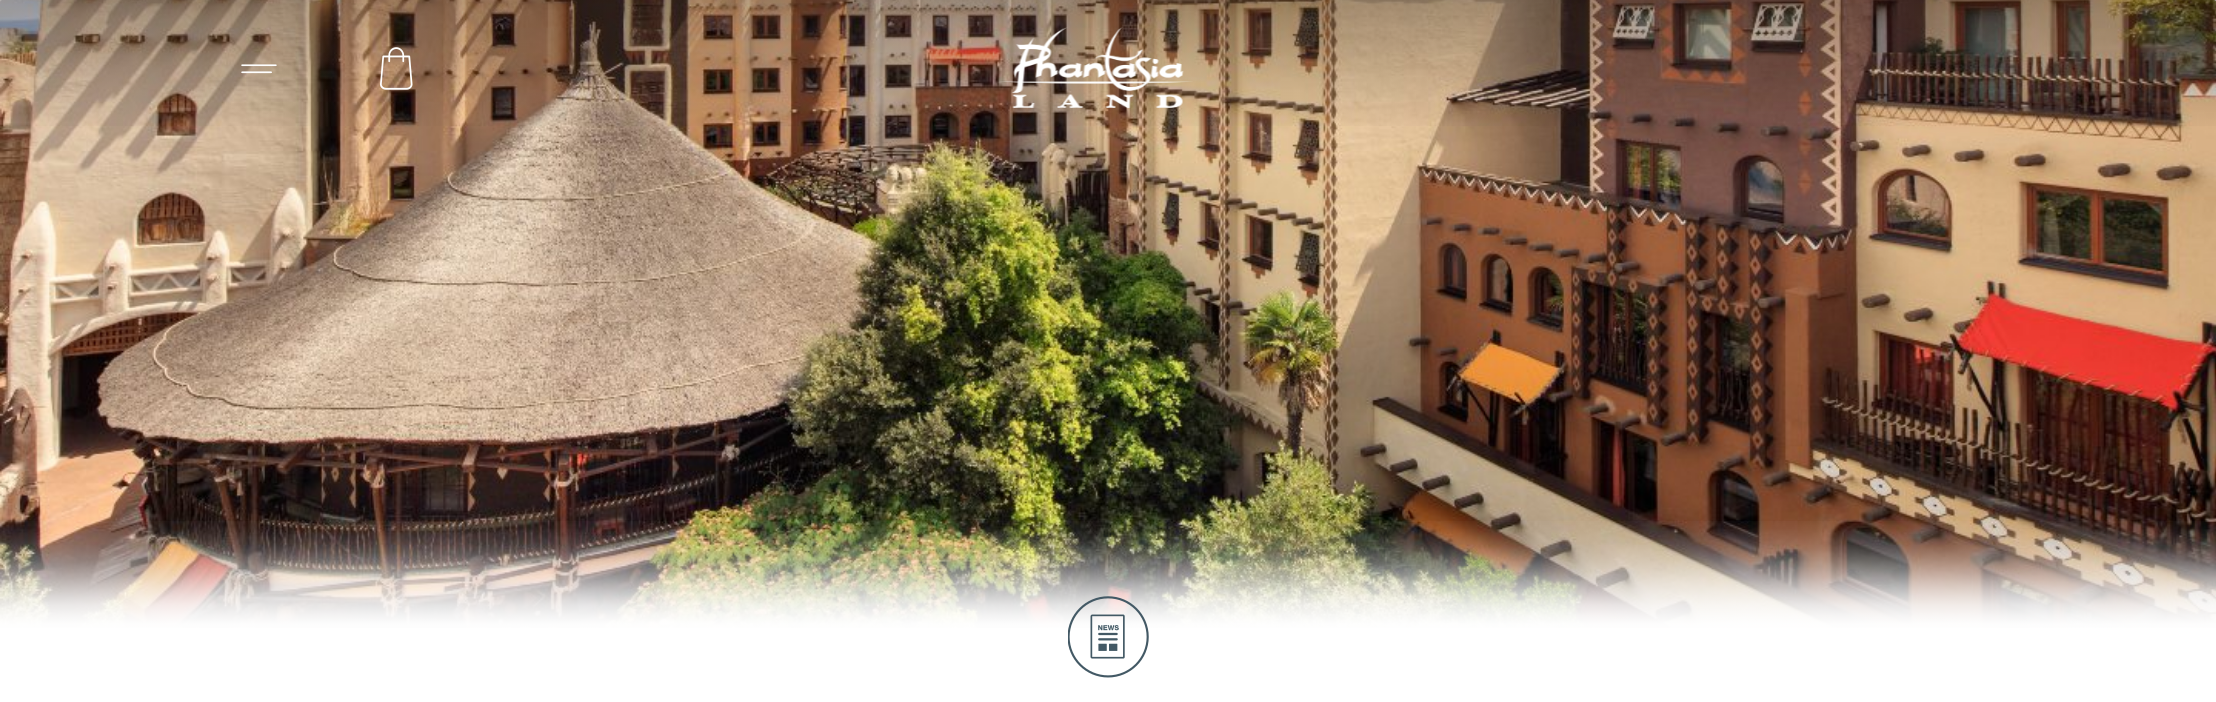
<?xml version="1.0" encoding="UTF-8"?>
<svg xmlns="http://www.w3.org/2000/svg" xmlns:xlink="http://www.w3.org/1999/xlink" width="2216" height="702">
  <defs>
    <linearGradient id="g1" gradientUnits="userSpaceOnUse" x1="1108" y1="634" x2="1108" y2="508"><stop offset="0" stop-color="#ffffff" /><stop offset="0.08" stop-color="#ffffff" stop-opacity="0.99" /><stop offset="0.15" stop-color="#ffffff" stop-opacity="0.95" /><stop offset="0.23" stop-color="#ffffff" stop-opacity="0.89" /><stop offset="0.29" stop-color="#ffffff" stop-opacity="0.82" /><stop offset="0.35" stop-color="#ffffff" stop-opacity="0.74" /><stop offset="0.41" stop-color="#ffffff" stop-opacity="0.65" /><stop offset="0.47" stop-color="#ffffff" stop-opacity="0.55" /><stop offset="0.53" stop-color="#ffffff" stop-opacity="0.45" /><stop offset="0.59" stop-color="#ffffff" stop-opacity="0.35" /><stop offset="0.65" stop-color="#ffffff" stop-opacity="0.26" /><stop offset="0.71" stop-color="#ffffff" stop-opacity="0.18" /><stop offset="0.78" stop-color="#ffffff" stop-opacity="0.11" /><stop offset="0.84" stop-color="#ffffff" stop-opacity="0.05" /><stop offset="0.92" stop-color="#ffffff" stop-opacity="0.01" /><stop offset="1" stop-color="#ffffff" stop-opacity="0" /></linearGradient>
    <linearGradient id="g2" gradientUnits="userSpaceOnUse" x1="1108" y1="0" x2="1108" y2="135"><stop offset="0" stop-color="#130700" stop-opacity="0.31" /><stop offset="1" stop-color="#130700" stop-opacity="0" /></linearGradient>
  </defs>
  <rect width="100%" height="100%" fill="#ffffff" />
  <image x="0" y="0" width="2216" height="628" xlink:href="image1.png" />
  <rect y="521" width="2216" height="107" fill="url(#g1)" />
  <rect width="2216" height="126" fill="url(#g2)" />
  <image x="241" y="64" width="36" height="10" xlink:href="image2.png" />
  <image x="380" y="47" width="33" height="43" xlink:href="image3.png" />
  <image x="999" y="27" width="194" height="81" xlink:href="image4.png" />
  <image x="1068" y="596" width="81" height="82" xlink:href="image5.png" />
</svg>
